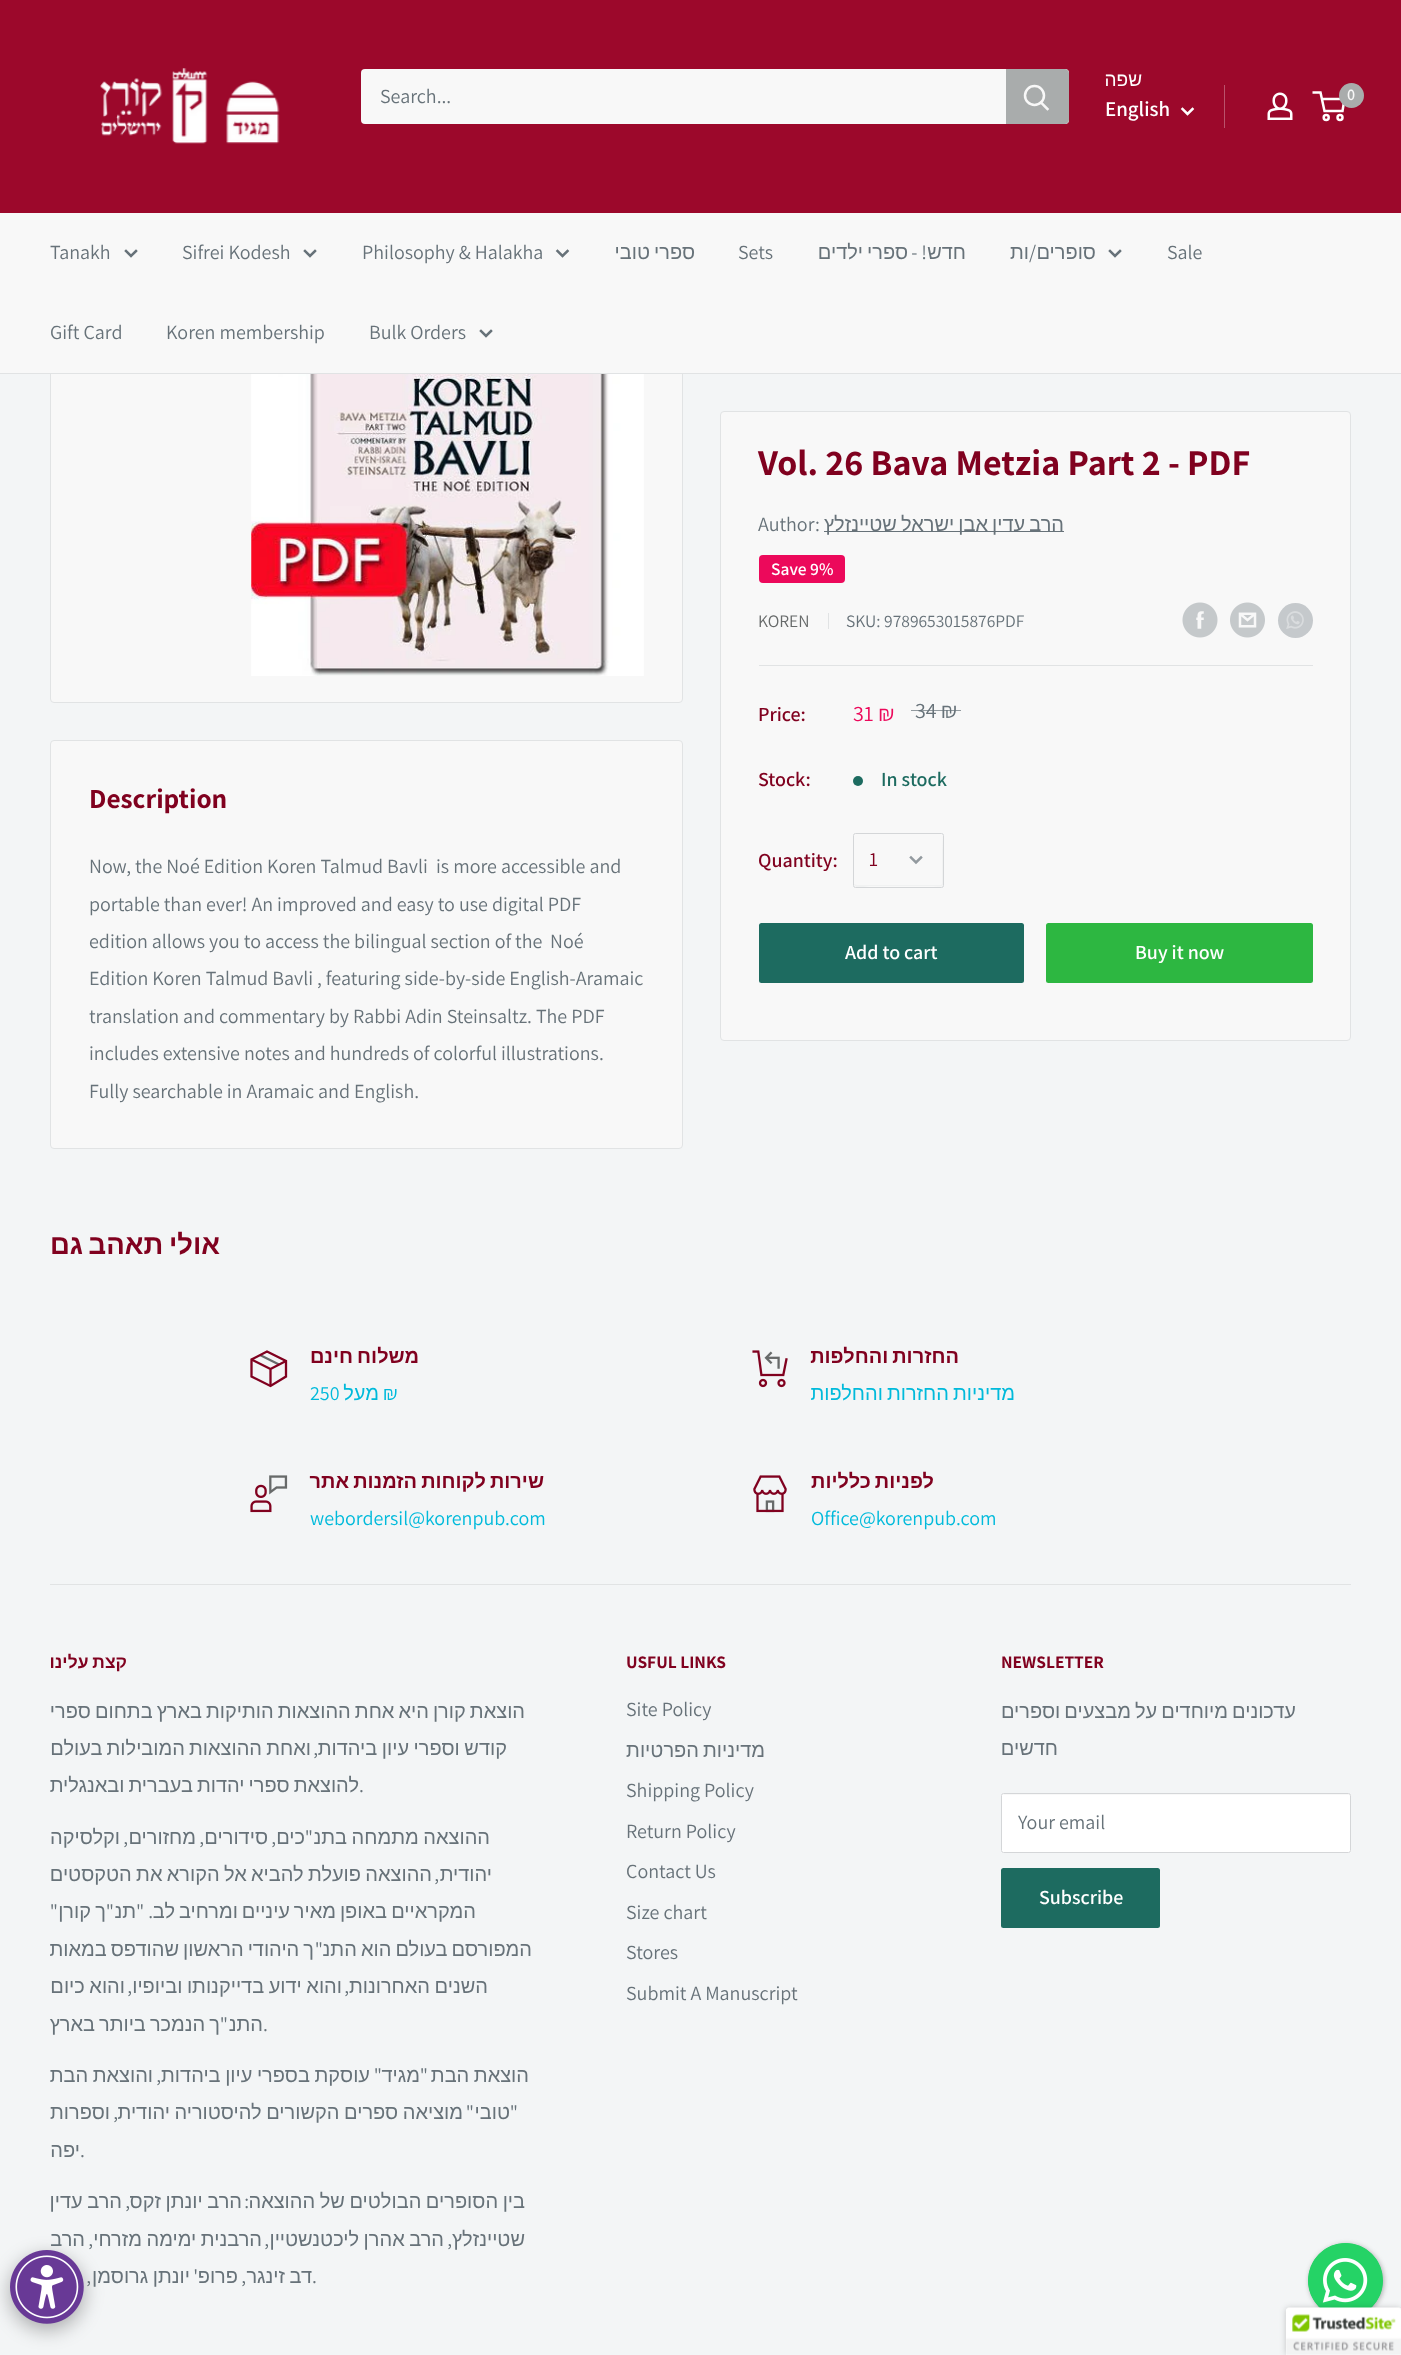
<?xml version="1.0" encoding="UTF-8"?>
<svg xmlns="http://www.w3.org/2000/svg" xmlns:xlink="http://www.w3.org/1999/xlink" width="1401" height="2355">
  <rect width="100%" height="100%" fill="#f3f5f6" />
  <rect x="50.5" y="173.5" width="632" height="529" rx="3.5" fill="#f8f8f8" stroke="#e1e3e4" />
  <rect width="1401" height="213" fill="#9c082b" />
  <path d="M 1321.5 99 h 23 l -2 12 h -18 l -4 -18.5 h -8" fill="none" stroke="#ffffff" stroke-width="2.5" />
  <circle cx="1351.5" cy="95.5" r="12.5" fill="#a9acac" />
  <circle cx="1326.2" cy="117.5" r="2.5" fill="none" stroke="#ffffff" stroke-width="2.5" />
  <circle cx="1340" cy="117.5" r="2.5" fill="none" stroke="#ffffff" stroke-width="2.5" />
  <image x="1267" y="92" width="26" height="28" xlink:href="image1.png" />
  <rect x="1224" y="85" width="1" height="43" fill="#ba526b" />
  <path d="M 1192.5 109 l -5 5 l -5 -5" fill="none" stroke="#ffffff" stroke-width="2.5" stroke-linecap="square" />
  <rect x="361" y="69" width="708" height="55" rx="4" fill="#f8f8f8" />
  <path d="M 1006 69 h 59 c 2 0 4 2 4 4 v 47 c 0 2 -2 4 -4 4 h -59 z" fill="#a9acac" />
  <path d="M 1047.5 109 l -6.5 -6.5" fill="none" stroke="#f8f8f8" stroke-width="2.5" stroke-linecap="square" />
  <circle cx="1034.5" cy="95.5" r="9.5" fill="none" stroke="#f8f8f8" stroke-width="2.5" />
  <image x="100" y="68" width="180" height="76" xlink:href="image2.png" />
  <rect y="213" width="1401" height="160" fill="#f8f8f8" />
  <rect y="373" width="1401" height="1" fill="#e1e3e4" />
  <path d="M 1120 251 l -5 5 l -5 -5" fill="none" stroke="#677279" stroke-width="2.5" stroke-linecap="square" />
  <path d="M 567.5 251 l -5 5 l -5 -5" fill="none" stroke="#677279" stroke-width="2.5" stroke-linecap="square" />
  <path d="M 315 251 l -5 5 l -5 -5" fill="none" stroke="#677279" stroke-width="2.5" stroke-linecap="square" />
  <path d="M 136 251 l -5 5 l -5 -5" fill="none" stroke="#677279" stroke-width="2.5" stroke-linecap="square" />
  <path d="M 491 331 l -5 5 l -5 -5" fill="none" stroke="#677279" stroke-width="2.5" stroke-linecap="square" />
  <rect x="720.5" y="411.5" width="630" height="629" rx="3.5" fill="#f8f8f8" stroke="#e1e3e4" />
  <rect x="824" y="531" width="240" height="1" fill="#677279" />
  <rect x="759" y="555" width="86" height="28" rx="4" fill="#ec095b" />
  <circle cx="1295.5" cy="620.5" r="17.5" fill="#c5c9cc" />
  <image x="1286" y="611" width="18" height="18" xlink:href="image3.png" />
  <image x="1230" y="602" width="35" height="36" xlink:href="image4.png" />
  <image x="1182" y="602" width="36" height="36" xlink:href="image5.png" />
  <rect x="828" y="613" width="1" height="16" fill="#e1e3e4" />
  <rect x="759" y="665" width="554" height="1" fill="#e1e3e4" />
  <circle cx="858" cy="781" r="5" fill="#1d6b60" />
  <path d="M 854 884 c 0 6 13 2 16 2 h 58 c 17 0 15 4 15 -9 v -43 l -1 16 v 34 l -1 1 h -84 z" fill="#f1f2f2" />
  <rect x="853.5" y="833.5" width="90" height="54" rx="2" fill="none" stroke="#d4d6d8" />
  <path d="M 921 857.5 l -5 5 l -5 -5" fill="none" stroke="#939a9f" stroke-width="2.5" stroke-linecap="square" />
  <rect x="1046" y="923" width="267" height="60" rx="2.5" fill="#2db741" />
  <rect x="759" y="923" width="265" height="60" rx="2.5" fill="#1d6b60" />
  <image x="251" y="374" width="393" height="302" xlink:href="image6.png" />
  <rect x="50.5" y="740.5" width="632" height="408" rx="3.5" fill="#f8f8f8" stroke="#e1e3e4" />
  <image x="752" y="1350" width="36" height="38" xlink:href="image7.png" />
  <path d="M 260 1355 l 19 9.5" fill="none" stroke="#676a6a" stroke-width="2.3" />
  <path d="M 286 1361 l -15.5 8 l -19 -9.5 m 19 9.5 v 17" fill="none" stroke="#80011f" stroke-width="2.3" />
  <path d="M 286 1361 v 15.5 l -15.5 9.5 l -19 -9.5 v -17 l 15.5 -8 z" fill="none" stroke="#80011f" stroke-width="2.3" stroke-linecap="square" />
  <image x="753" y="1475" width="34" height="38" xlink:href="image8.png" />
  <image x="250" y="1475" width="38" height="38" xlink:href="image9.png" />
  <rect x="1309" y="2244" width="75" height="75" rx="37.5" fill="#3c3c3c" fill-opacity="0.4" filter="blur(2.5px)" />
  <circle cx="1345.5" cy="2280.5" r="37.5" fill="#25d366" />
  <image x="1308" y="2243" width="75" height="65" xlink:href="image10.png" />
  <rect x="50" y="1584" width="1301" height="1" fill="#e1e3e4" />
  <rect x="1001" y="1793" width="350" height="60" rx="2.5" fill="#ffffff" />
  <path d="M 1004 1795 h 345 l 1 1 v -2 h -346 c -1 0 -1 1 -1 1 z" fill="#f8f8f8" />
  <rect x="1001.5" y="1793.5" width="349" height="59" rx="2" fill="none" stroke="#d4d6d8" />
  <rect x="1001" y="1868" width="159" height="60" rx="2.5" fill="#1d6b60" />
  <rect x="1286" y="2308" width="115" height="47" rx="2.5" fill="#000000" fill-opacity="0.2" filter="blur(3px)" />
  <path d="M 1288.5 2308 h 112.5 v 47 h -115 v -44.5 c 0 -1.5 1 -2.5 2.5 -2.5 z" fill="#ffffff" />
  <image x="1286" y="2307" width="115" height="48" xlink:href="image11.png" />
  <rect x="10" y="2256" width="74" height="74" rx="37" fill="#000000" fill-opacity="0.3" filter="blur(9.5px)" />
  <image x="10" y="2250" width="74" height="74" xlink:href="image12.png" />
  <text x="1347" y="100" style="font-family: Assistant; font-size: 16px; font-weight: 600; fill: #f8f8f8">0</text>
  <text x="1142" y="86" style="font-family: Liberation Sans; font-size: 19px; direction: rtl; fill: #ffffff">שפה</text>
  <text x="1105" y="116" style="font-family: Assistant; font-size: 21px; font-weight: 600; fill: #ffffff">English</text>
  <text x="380" y="103" style="font-family: Assistant; font-size: 20px; fill: #677279">Search...</text>
  <text x="1167" y="259" style="font-family: Assistant; font-size: 20px; fill: #677279">Sale</text>
  <text x="1096" y="259" style="font-family: Liberation Sans; font-size: 20px; direction: rtl; fill: #677279">סופרים</text>
  <text x="1036" y="259" style="font-family: Assistant; font-size: 20px; direction: rtl; fill: #677279">/</text>
  <text x="1029" y="259" style="font-family: Liberation Sans; font-size: 20px; direction: rtl; fill: #677279">ות</text>
  <text x="966" y="259" style="font-family: Liberation Sans; font-size: 20px; direction: rtl; fill: #677279">חדש</text>
  <text x="927" y="259" style="font-family: Assistant; font-size: 20px; direction: rtl; fill: #677279">! -</text>
  <text x="908" y="259" style="font-family: Liberation Sans; font-size: 20px; direction: rtl; fill: #677279">ספרי</text>
  <text x="863" y="259" style="font-family: Liberation Sans; font-size: 20px; direction: rtl; fill: #677279">ילדים</text>
  <text x="738" y="259" style="font-family: Assistant; font-size: 20px; fill: #677279">Sets</text>
  <text x="695" y="259" word-spacing="-1.5" style="font-family: Liberation Sans; font-size: 20px; direction: rtl; fill: #677279">ספרי טובי</text>
  <text x="362" y="259" style="font-family: Assistant; font-size: 20px; fill: #677279">Philosophy &amp; Halakha</text>
  <text x="182" y="259" style="font-family: Assistant; font-size: 20px; fill: #677279">Sifrei Kodesh</text>
  <text x="50" y="259" style="font-family: Assistant; font-size: 20px; fill: #677279">Tanakh</text>
  <text x="369" y="339" style="font-family: Assistant; font-size: 20px; fill: #677279">Bulk Orders</text>
  <text x="166" y="339" style="font-family: Assistant; font-size: 20px; fill: #677279">Koren membership</text>
  <text x="50" y="339" style="font-family: Assistant; font-size: 20px; fill: #677279">Gift Card</text>
  <text x="758" y="475" style="font-family: Assistant; font-size: 36.25px; font-weight: bold; fill: #80011f">Vol. 26 Bava Metzia Part 2 - PDF</text>
  <text x="1064" y="531" word-spacing="-1.5" style="font-family: Liberation Sans; font-size: 20px; direction: rtl; fill: #677279">הרב עדין אבן ישראל שטיינזלץ</text>
  <text x="758" y="531" style="font-family: Assistant; font-size: 20px; fill: #677279">Author:</text>
  <text x="771" y="575" style="font-family: Assistant; font-size: 17.5px; font-weight: 600; fill: #ffffff">Save 9%</text>
  <text x="846" y="627" style="font-family: Assistant; font-size: 17.5px; fill: #677279">SKU: 9789653015876PDF</text>
  <text x="758" y="627" style="font-family: Assistant; font-size: 17.5px; fill: #676a6a">KOREN</text>
  <text x="915" y="718" style="font-family: Assistant; font-size: 22px; fill: #677279">34 ₪</text>
  <rect x="911" y="710" width="50" height="1" fill="#677279" fill-opacity="0.7" />
  <text x="853" y="721" style="font-family: Assistant; font-size: 22px; fill: #ec095b">31 ₪</text>
  <text x="758" y="721" style="font-family: Assistant; font-size: 20px; font-weight: 600; fill: #80011f">Price:</text>
  <text x="881" y="786" style="font-family: Assistant; font-size: 20px; font-weight: 600; fill: #1d6b60">In stock</text>
  <text x="758" y="786" style="font-family: Assistant; font-size: 20px; font-weight: 600; fill: #80011f">Stock:</text>
  <text x="869" y="866" style="font-family: Assistant; font-size: 20px; fill: #80011f">1</text>
  <text x="758" y="867" style="font-family: Assistant; font-size: 20px; font-weight: 600; fill: #80011f">Quantity:</text>
  <text x="1135" y="959" style="font-family: Assistant; font-size: 20px; font-weight: 600; fill: #ffffff">Buy it now</text>
  <text x="845" y="959" style="font-family: Assistant; font-size: 20px; font-weight: 600; fill: #ffffff">Add to cart</text>
  <text x="89" y="808" style="font-family: Assistant; font-size: 27.5px; font-weight: bold; fill: #80011f">Description</text>
  <text x="436" y="873" style="font-family: Assistant; font-size: 20px; fill: #677279">is more accessible and</text>
  <text x="89" y="873" style="font-family: Assistant; font-size: 20px; fill: #677279">Now, the Noé Edition Koren Talmud Bavli</text>
  <text x="89" y="911" style="font-family: Assistant; font-size: 20px; fill: #677279">portable than ever! An improved and easy to use digital PDF</text>
  <text x="550" y="948" style="font-family: Assistant; font-size: 20px; fill: #677279">Noé</text>
  <text x="89" y="948" style="font-family: Assistant; font-size: 20px; fill: #677279">edition allows you to access the bilingual section of the</text>
  <text x="89" y="985" style="font-family: Assistant; font-size: 20px; fill: #677279">Edition Koren Talmud Bavli , featuring side-by-side English-Aramaic</text>
  <text x="89" y="1023" style="font-family: Assistant; font-size: 20px; fill: #677279">translation and commentary by Rabbi Adin Steinsaltz. The PDF</text>
  <text x="89" y="1060" style="font-family: Assistant; font-size: 20px; fill: #677279">includes extensive notes and hundreds of colorful illustrations.</text>
  <text x="89" y="1098" style="font-family: Assistant; font-size: 20px; fill: #677279">Fully searchable in Aramaic and English.</text>
  <text x="220" y="1254" word-spacing="-2" style="font-family: Liberation Sans; font-size: 27.5px; font-weight: bold; direction: rtl; fill: #80011f">אולי תאהב גם</text>
  <text x="959" y="1363" word-spacing="-1.5" style="font-family: Liberation Sans; font-size: 20px; font-weight: bold; direction: rtl; fill: #80011f">החזרות והחלפות</text>
  <text x="1015" y="1400" word-spacing="-1.5" style="font-family: Liberation Sans; font-size: 20px; direction: rtl; fill: #00badb">מדיניות החזרות והחלפות</text>
  <text x="419" y="1363" word-spacing="-1.5" style="font-family: Liberation Sans; font-size: 20px; font-weight: bold; direction: rtl; fill: #80011f">משלוח חינם</text>
  <text x="383" y="1400" style="font-family: Assistant; font-size: 20px; fill: #00badb">₪</text>
  <text x="379" y="1400" style="font-family: Liberation Sans; font-size: 20px; direction: rtl; fill: #00badb">מעל</text>
  <text x="310" y="1400" style="font-family: Assistant; font-size: 20px; fill: #00badb">250</text>
  <text x="934" y="1488" word-spacing="-1.5" style="font-family: Liberation Sans; font-size: 20px; font-weight: bold; direction: rtl; fill: #80011f">לפניות כלליות</text>
  <text x="811" y="1525" style="font-family: Assistant; font-size: 20px; fill: #00badb">Office@korenpub.com</text>
  <text x="544" y="1488" word-spacing="-1.5" style="font-family: Liberation Sans; font-size: 20px; font-weight: bold; direction: rtl; fill: #80011f">שירות לקוחות הזמנות אתר</text>
  <text x="310" y="1525" style="font-family: Assistant; font-size: 20px; fill: #00badb">webordersil@korenpub.com</text>
  <text x="1001" y="1668" style="font-family: Assistant; font-size: 17.5px; font-weight: bold; fill: #80011f">NEWSLETTER</text>
  <text x="1296" y="1718" word-spacing="-1.5" style="font-family: Liberation Sans; font-size: 20px; direction: rtl; fill: #677279">עדכונים מיוחדים על מבצעים וספרים</text>
  <text x="1058" y="1755" style="font-family: Liberation Sans; font-size: 20px; direction: rtl; fill: #677279">חדשים</text>
  <text x="1018" y="1829" style="font-family: Assistant; font-size: 20px; fill: #677279">Your email</text>
  <text x="1039" y="1904" style="font-family: Assistant; font-size: 20px; font-weight: 600; fill: #ffffff">Subscribe</text>
  <text x="626" y="1668" style="font-family: Assistant; font-size: 17.5px; font-weight: bold; fill: #80011f">USFUL LINKS</text>
  <text x="626" y="1716" style="font-family: Assistant; font-size: 20px; fill: #677279">Site Policy</text>
  <text x="765" y="1757" word-spacing="-1.5" style="font-family: Liberation Sans; font-size: 20px; direction: rtl; fill: #677279">מדיניות הפרטיות</text>
  <text x="626" y="1797" style="font-family: Assistant; font-size: 20px; fill: #677279">Shipping Policy</text>
  <text x="626" y="1838" style="font-family: Assistant; font-size: 20px; fill: #677279">Return Policy</text>
  <text x="626" y="1878" style="font-family: Assistant; font-size: 20px; fill: #677279">Contact Us</text>
  <text x="626" y="1919" style="font-family: Assistant; font-size: 20px; fill: #677279">Size chart</text>
  <text x="626" y="1959" style="font-family: Assistant; font-size: 20px; fill: #677279">Stores</text>
  <text x="626" y="2000" style="font-family: Assistant; font-size: 20px; fill: #677279">Submit A Manuscript</text>
  <text x="127" y="1668" word-spacing="-1" style="font-family: Liberation Sans; font-size: 17.5px; font-weight: bold; direction: rtl; fill: #80011f">קצת עלינו</text>
  <text x="525" y="1718" word-spacing="-1.5" style="font-family: Liberation Sans; font-size: 20px; direction: rtl; fill: #677279">הוצאת קורן היא אחת ההוצאות הותיקות בארץ בתחום ספרי</text>
  <text x="507" y="1755" word-spacing="-1" style="font-family: Liberation Sans; font-size: 20px; direction: rtl; fill: #677279">קודש וספרי עיון ביהדות</text>
  <text x="318" y="1755" style="font-family: Assistant; font-size: 20px; direction: rtl; fill: #677279">,</text>
  <text x="311" y="1755" style="font-family: Liberation Sans; font-size: 20px; direction: rtl; fill: #677279">ואחת</text>
  <text x="262" y="1755" word-spacing="-1.5" style="font-family: Liberation Sans; font-size: 20px; direction: rtl; fill: #677279">ההוצאות המובילות בעולם</text>
  <text x="359" y="1792" style="font-family: Assistant; font-size: 20px; fill: #677279">.</text>
  <text x="359" y="1792" word-spacing="-1.5" style="font-family: Liberation Sans; font-size: 20px; direction: rtl; fill: #677279">להוצאת ספרי יהדות בעברית ובאנגלית</text>
  <text x="490" y="1844" word-spacing="-1" style="font-family: Liberation Sans; font-size: 20px; direction: rtl; fill: #677279">ההוצאה מתמחה בתנ</text>
  <text x="313" y="1844" style="font-family: Assistant; font-size: 20px; direction: rtl; fill: #677279">"</text>
  <text x="305" y="1844" style="font-family: Liberation Sans; font-size: 20px; direction: rtl; fill: #677279">כים</text>
  <text x="276" y="1844" style="font-family: Assistant; font-size: 20px; direction: rtl; fill: #677279">,</text>
  <text x="268" y="1844" style="font-family: Liberation Sans; font-size: 20px; direction: rtl; fill: #677279">סידורים</text>
  <text x="204" y="1844" style="font-family: Assistant; font-size: 20px; direction: rtl; fill: #677279">,</text>
  <text x="196" y="1844" style="font-family: Liberation Sans; font-size: 20px; direction: rtl; fill: #677279">מחזורים</text>
  <text x="128" y="1844" style="font-family: Assistant; font-size: 20px; direction: rtl; fill: #677279">,</text>
  <text x="120" y="1844" style="font-family: Liberation Sans; font-size: 20px; direction: rtl; fill: #677279">וקלסיקה</text>
  <text x="492" y="1881" style="font-family: Liberation Sans; font-size: 20px; direction: rtl; fill: #677279">יהודית</text>
  <text x="439" y="1881" style="font-family: Assistant; font-size: 20px; direction: rtl; fill: #677279">,</text>
  <text x="432" y="1881" word-spacing="-1.25" style="font-family: Liberation Sans; font-size: 20px; direction: rtl; fill: #677279">ההוצאה פועלת להביא אל הקורא את הטקסטים</text>
  <text x="476" y="1918" style="font-family: Liberation Sans; font-size: 20px; direction: rtl; fill: #677279">המקראיים</text>
  <text x="387" y="1918" style="font-family: Liberation Sans; font-size: 20px; direction: rtl; fill: #677279">באופן</text>
  <text x="336" y="1918" style="font-family: Liberation Sans; font-size: 20px; direction: rtl; fill: #677279">מאיר</text>
  <text x="290" y="1918" style="font-family: Liberation Sans; font-size: 20px; direction: rtl; fill: #677279">עיניים</text>
  <text x="238" y="1918" style="font-family: Liberation Sans; font-size: 20px; direction: rtl; fill: #677279">ומרחיב</text>
  <text x="175" y="1918" style="font-family: Liberation Sans; font-size: 20px; direction: rtl; fill: #677279">לב</text>
  <text x="153" y="1918" style="font-family: Assistant; font-size: 20px; direction: rtl; fill: #677279">. "</text>
  <text x="136" y="1918" style="font-family: Liberation Sans; font-size: 20px; direction: rtl; fill: #677279">תנ</text>
  <text x="114" y="1918" style="font-family: Assistant; font-size: 20px; direction: rtl; fill: #677279">"</text>
  <text x="106" y="1918" style="font-family: Liberation Sans; font-size: 20px; direction: rtl; fill: #677279">ך</text>
  <text x="91" y="1918" style="font-family: Liberation Sans; font-size: 20px; direction: rtl; fill: #677279">קורן</text>
  <text x="58" y="1918" style="font-family: Assistant; font-size: 20px; direction: rtl; fill: #677279">"</text>
  <text x="532" y="1956" word-spacing="-1.5" style="font-family: Liberation Sans; font-size: 20px; direction: rtl; fill: #677279">המפורסם בעולם הוא התנ</text>
  <text x="323" y="1956" style="font-family: Assistant; font-size: 20px; direction: rtl; fill: #677279">"</text>
  <text x="314" y="1956" word-spacing="-1.5" style="font-family: Liberation Sans; font-size: 20px; direction: rtl; fill: #677279">ך היהודי הראשון שהודפס במאות</text>
  <text x="488" y="1993" word-spacing="-1" style="font-family: Liberation Sans; font-size: 20px; direction: rtl; fill: #677279">השנים האחרונות</text>
  <text x="349" y="1993" style="font-family: Assistant; font-size: 20px; direction: rtl; fill: #677279">,</text>
  <text x="342" y="1993" word-spacing="-1" style="font-family: Liberation Sans; font-size: 20px; direction: rtl; fill: #677279">והוא ידוע בדייקנותו וביופיו</text>
  <text x="132" y="1993" style="font-family: Assistant; font-size: 20px; direction: rtl; fill: #677279">,</text>
  <text x="125" y="1993" word-spacing="-1" style="font-family: Liberation Sans; font-size: 20px; direction: rtl; fill: #677279">והוא כיום</text>
  <text x="263" y="2031" style="font-family: Assistant; font-size: 20px; fill: #677279">.</text>
  <text x="263" y="2031" style="font-family: Liberation Sans; font-size: 20px; direction: rtl; fill: #677279">התנ</text>
  <text x="228" y="2031" style="font-family: Assistant; font-size: 20px; direction: rtl; fill: #677279">"</text>
  <text x="220" y="2031" word-spacing="-1.5" style="font-family: Liberation Sans; font-size: 20px; direction: rtl; fill: #677279">ך הנמכר ביותר בארץ</text>
  <text x="529" y="2082" word-spacing="-1" style="font-family: Liberation Sans; font-size: 20px; direction: rtl; fill: #677279">הוצאת הבת</text>
  <text x="428" y="2082" style="font-family: Assistant; font-size: 20px; direction: rtl; fill: #677279">"</text>
  <text x="420" y="2082" style="font-family: Liberation Sans; font-size: 20px; direction: rtl; fill: #677279">מגיד</text>
  <text x="382" y="2082" style="font-family: Assistant; font-size: 20px; direction: rtl; fill: #677279">"</text>
  <text x="370" y="2082" word-spacing="-1" style="font-family: Liberation Sans; font-size: 20px; direction: rtl; fill: #677279">עוסקת בספרי עיון ביהדות</text>
  <text x="161" y="2082" style="font-family: Assistant; font-size: 20px; direction: rtl; fill: #677279">,</text>
  <text x="153" y="2082" word-spacing="-1" style="font-family: Liberation Sans; font-size: 20px; direction: rtl; fill: #677279">והוצאת הבת</text>
  <text x="518" y="2119" style="font-family: Assistant; font-size: 20px; direction: rtl; fill: #677279">"</text>
  <text x="510" y="2119" style="font-family: Liberation Sans; font-size: 20px; direction: rtl; fill: #677279">טובי</text>
  <text x="474" y="2119" style="font-family: Assistant; font-size: 20px; direction: rtl; fill: #677279">"</text>
  <text x="463" y="2119" word-spacing="-1" style="font-family: Liberation Sans; font-size: 20px; direction: rtl; fill: #677279">מוציאה ספרים הקשורים להיסטוריה יהודית</text>
  <text x="118" y="2119" style="font-family: Assistant; font-size: 20px; direction: rtl; fill: #677279">,</text>
  <text x="110" y="2119" style="font-family: Liberation Sans; font-size: 20px; direction: rtl; fill: #677279">וספרות</text>
  <text x="80" y="2157" style="font-family: Assistant; font-size: 20px; fill: #677279">.</text>
  <text x="80" y="2157" style="font-family: Liberation Sans; font-size: 20px; direction: rtl; fill: #677279">יפה</text>
  <text x="525" y="2208" word-spacing="-1" style="font-family: Liberation Sans; font-size: 20px; direction: rtl; fill: #677279">בין הסופרים הבולטים של ההוצאה</text>
  <text x="249" y="2208" style="font-family: Assistant; font-size: 20px; direction: rtl; fill: #677279">:</text>
  <text x="242" y="2208" word-spacing="-1" style="font-family: Liberation Sans; font-size: 20px; direction: rtl; fill: #677279">הרב יונתן זקס</text>
  <text x="130" y="2208" style="font-family: Assistant; font-size: 20px; direction: rtl; fill: #677279">,</text>
  <text x="122" y="2208" word-spacing="-1" style="font-family: Liberation Sans; font-size: 20px; direction: rtl; fill: #677279">הרב עדין</text>
  <text x="525" y="2246" style="font-family: Liberation Sans; font-size: 20px; direction: rtl; fill: #677279">שטיינזלץ</text>
  <text x="452" y="2246" style="font-family: Assistant; font-size: 20px; direction: rtl; fill: #677279">,</text>
  <text x="444" y="2246" word-spacing="-1" style="font-family: Liberation Sans; font-size: 20px; direction: rtl; fill: #677279">הרב אהרן ליכטנשטיין</text>
  <text x="269" y="2246" style="font-family: Assistant; font-size: 20px; direction: rtl; fill: #677279">,</text>
  <text x="262" y="2246" word-spacing="-1" style="font-family: Liberation Sans; font-size: 20px; direction: rtl; fill: #677279">הרבנית ימימה מזרחי</text>
  <text x="93" y="2246" style="font-family: Assistant; font-size: 20px; direction: rtl; fill: #677279">,</text>
  <text x="85" y="2246" style="font-family: Liberation Sans; font-size: 20px; direction: rtl; fill: #677279">הרב</text>
  <text x="312" y="2283" style="font-family: Assistant; font-size: 20px; fill: #677279">.</text>
  <text x="312" y="2283" word-spacing="-1" style="font-family: Liberation Sans; font-size: 20px; direction: rtl; fill: #677279">דב זינגר</text>
  <text x="246" y="2283" style="font-family: Assistant; font-size: 20px; direction: rtl; fill: #677279">,</text>
  <text x="238" y="2283" style="font-family: Liberation Sans; font-size: 20px; direction: rtl; fill: #677279">פרופ</text>
  <text x="198" y="2283" style="font-family: Assistant; font-size: 20px; direction: rtl; fill: #677279">'</text>
  <text x="190" y="2283" word-spacing="-1" style="font-family: Liberation Sans; font-size: 20px; direction: rtl; fill: #677279">יונתן גרוסמן</text>
  <text x="91" y="2283" style="font-family: Assistant; font-size: 20px; direction: rtl; fill: #677279">,</text>
</svg>
